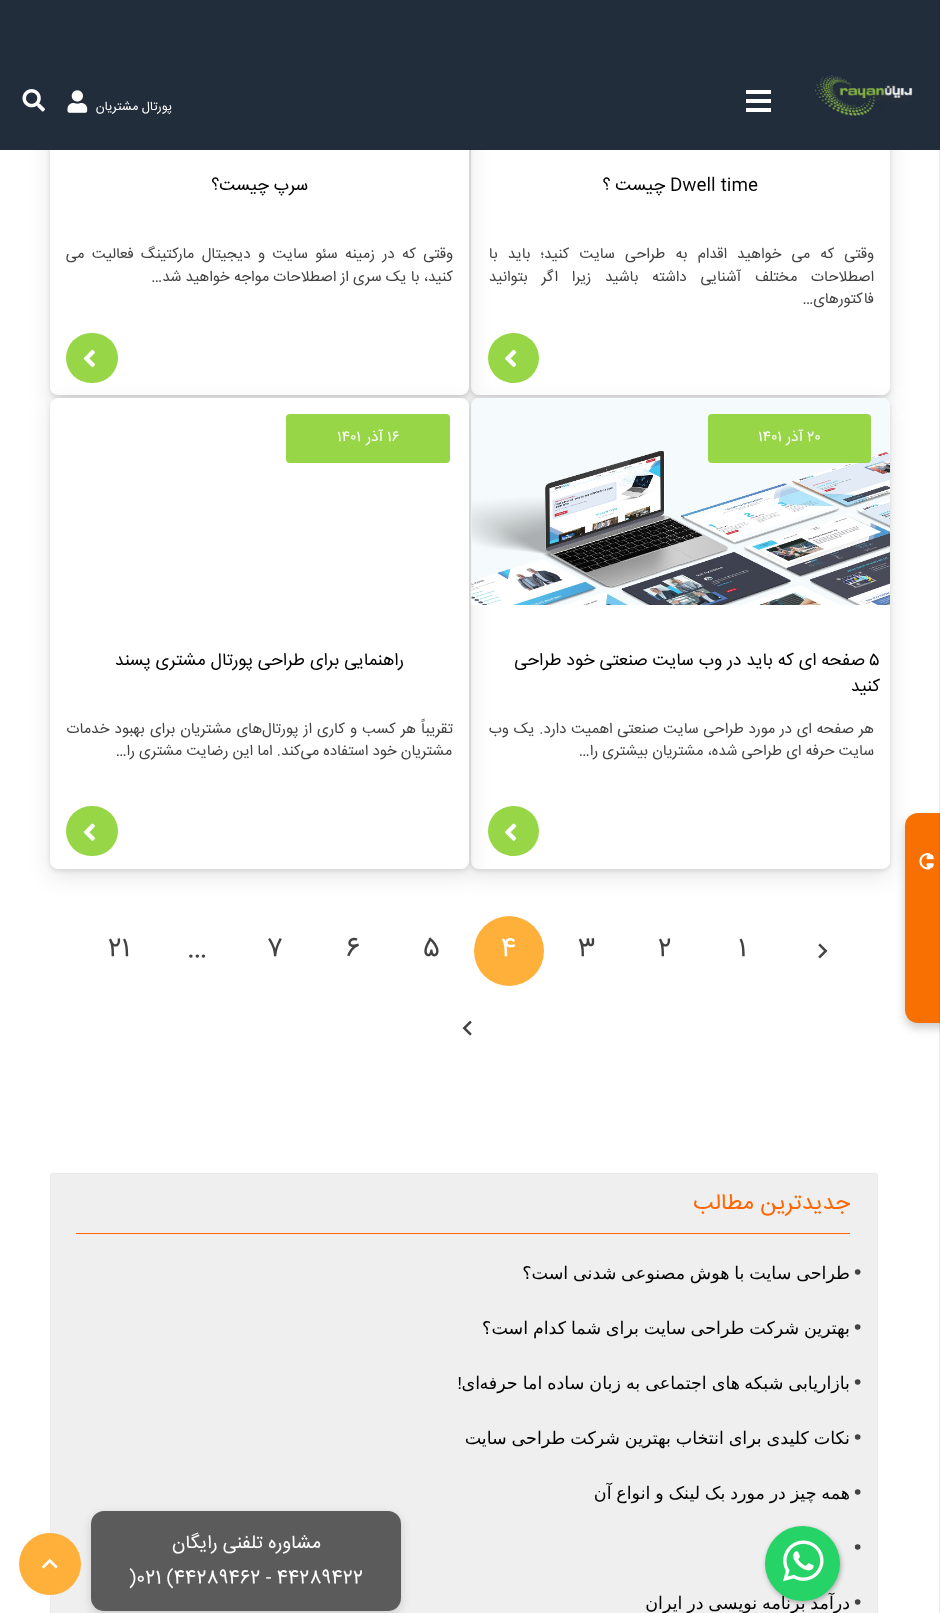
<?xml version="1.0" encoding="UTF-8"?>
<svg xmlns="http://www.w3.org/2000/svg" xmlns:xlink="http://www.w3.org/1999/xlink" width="940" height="1613">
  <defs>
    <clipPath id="clip1"><path d="M 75 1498 h 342 v 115 h -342 z m 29 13 h 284 c 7 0 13 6 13 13 v 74 c 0 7 -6 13 -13 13 h -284 c -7 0 -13 -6 -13 -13 v -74 c 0 -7 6 -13 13 -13 z" clip-rule="evenodd" /></clipPath>
  </defs>
  <rect width="100%" height="100%" fill="#ffffff" />
  <rect x="471" y="-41" width="419" height="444" rx="8" fill="#000000" fill-opacity="0.1" filter="blur(11px)" />
  <rect x="471" y="-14" width="419" height="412" rx="8" fill="#000000" fill-opacity="0.1" filter="blur(2px)" />
  <rect x="471" y="-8" width="419" height="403" rx="8" fill="#ffffff" />
  <rect x="50" y="-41" width="419" height="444" rx="8" fill="#000000" fill-opacity="0.1" filter="blur(11px)" />
  <rect x="50" y="-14" width="419" height="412" rx="8" fill="#000000" fill-opacity="0.1" filter="blur(2px)" />
  <rect x="50" y="-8" width="419" height="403" rx="8" fill="#ffffff" />
  <rect width="940" height="150" fill="#222d3c" />
  <rect x="471" y="405" width="419" height="471" rx="8" fill="#000000" fill-opacity="0.1" filter="blur(11px)" />
  <rect x="471" y="400" width="419" height="471" rx="8" fill="#000000" fill-opacity="0.1" filter="blur(2px)" />
  <rect x="471" y="398" width="419" height="471" rx="8" fill="#ffffff" />
  <rect x="905" y="818" width="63" height="210" rx="13" fill="#000000" fill-opacity="0.2" filter="blur(5px)" />
  <rect x="905" y="813" width="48" height="210" rx="13" fill="#f87002" />
  <path d="M 939 0 v 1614 h 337 h -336 v -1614 z" fill="#000000" fill-opacity="0.08" />
  <rect x="746" y="99" width="25" height="4" fill="#ffffff" />
  <rect x="746" y="90" width="25" height="4" fill="#ffffff" />
  <rect x="746" y="108" width="25" height="4" fill="#ffffff" />
  <image x="815" y="75" width="98" height="41" xlink:href="image1.png" />
  <image x="67" y="90" width="21" height="23" xlink:href="image2.png" />
  <image x="22" y="89" width="23" height="23" xlink:href="image3.png" />
  <image x="919" y="853" width="15" height="17" xlink:href="image4.png" />
  <rect x="50" y="405" width="419" height="471" rx="8" fill="#000000" fill-opacity="0.1" filter="blur(11px)" />
  <rect x="488" y="333" width="51" height="50" rx="25" fill="#97d646" />
  <image x="505" y="349" width="12" height="18" xlink:href="image5.png" />
  <rect x="66" y="333" width="52" height="50" rx="25" fill="#97d646" />
  <image x="83" y="349" width="12" height="18" xlink:href="image6.png" />
  <rect x="50" y="400" width="419" height="471" rx="8" fill="#000000" fill-opacity="0.1" filter="blur(2px)" />
  <image x="471" y="397" width="419" height="208" xlink:href="image7.png" />
  <rect x="708" y="414" width="163" height="49" rx="4" fill="#97d646" />
  <rect x="488" y="806" width="51" height="50" rx="25" fill="#97d646" />
  <image x="505" y="823" width="12" height="18" xlink:href="image8.png" />
  <rect x="50" y="398" width="419" height="471" rx="8" fill="#ffffff" />
  <rect x="286" y="414" width="164" height="49" rx="4" fill="#97d646" />
  <rect x="66" y="806" width="52" height="50" rx="25" fill="#97d646" />
  <image x="83" y="823" width="12" height="18" xlink:href="image9.png" />
  <image x="818" y="943" width="10" height="16" xlink:href="image10.png" />
  <circle cx="509" cy="951" r="35" fill="#ffb03a" />
  <image x="462" y="1020" width="10" height="16" xlink:href="image11.png" />
  <rect x="50.5" y="1173.5" width="827" height="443" rx="2" fill="#efefef" stroke="#ede9e9" />
  <rect x="76" y="1233" width="774" height="1" fill="#ff6600" />
  <rect x="766" y="1528" width="75" height="75" rx="37.5" fill="#000000" fill-opacity="0.3" filter="blur(2.5px)" />
  <circle cx="50" cy="1564" r="31" fill="#ffb03a" />
  <g clip-path="url(#clip1)">
    <rect x="91" y="1514" width="310" height="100" rx="13" fill="#000000" fill-opacity="0.15" filter="blur(5px)" />
  </g>
  <rect x="91" y="1511" width="310" height="100" rx="13" fill="#000000" fill-opacity="0.62" />
  <image x="41" y="1558" width="17" height="11" xlink:href="image13.png" />
  <text x="172" y="110" style="font-family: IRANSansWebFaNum; font-size: 12.5px; direction: rtl; fill: #ffffff">پورتال مشتریان</text>
  <text x="1022" y="964" transform="rotate(-90 1022 964)" style="font-family: IRANSansWebFaNum; font-size: 16.25px; direction: rtl; fill: #ffffff">مشاوره رایگان</text>
  <text x="670" y="190" style="font-family: IRANSansWebFaNum; font-size: 17.5px; fill: #000000">Dwell time</text>
  <text x="665" y="190" style="font-family: IRANSansWebFaNum; font-size: 17.5px; direction: rtl; fill: #000000">چیست ؟</text>
  <text x="874" y="258" word-spacing="6" style="font-family: IRANSansWebFaNum; font-size: 15px; direction: rtl; fill: #424242">وقتی که می‌ خواهید اقدام به طراحی سایت کنید؛ باید با</text>
  <text x="874" y="281" word-spacing="9.5" style="font-family: IRANSansWebFaNum; font-size: 15px; direction: rtl; fill: #424242">اصطلاحات مختلف آشنایی داشته باشید زیرا اگر بتوانید</text>
  <text x="874" y="303" style="font-family: IRANSansWebFaNum; font-size: 15px; direction: rtl; fill: #424242">فاکتورهای…</text>
  <text x="308" y="190" style="font-family: IRANSansWebFaNum; font-size: 17.5px; direction: rtl; fill: #000000">سرپ چیست؟</text>
  <text x="453" y="258" word-spacing="3.25" style="font-family: IRANSansWebFaNum; font-size: 15px; direction: rtl; fill: #424242">وقتی که در زمینه سئو سایت و دیجیتال مارکتینگ فعالیت می‌</text>
  <text x="453" y="281" style="font-family: IRANSansWebFaNum; font-size: 15px; direction: rtl; fill: #424242">کنید، با یک سری از اصطلاحات مواجه خواهید شد…</text>
  <text x="807" y="441" style="font-family: IRANSansWebFaNum; font-size: 15px; fill: #ffffff">۲۰</text>
  <text x="803" y="441" style="font-family: IRANSansWebFaNum; font-size: 15px; direction: rtl; fill: #ffffff">آذر</text>
  <text x="758" y="441" style="font-family: IRANSansWebFaNum; font-size: 15px; fill: #ffffff">۱۴۰۱</text>
  <text x="869" y="665" style="font-family: IRANSansWebFaNum; font-size: 17.5px; fill: #000000">۵</text>
  <text x="865" y="665" style="font-family: IRANSansWebFaNum; font-size: 17.5px; direction: rtl; fill: #000000">صفحه ای که باید در وب سایت صنعتی خود طراحی</text>
  <text x="880" y="691" style="font-family: IRANSansWebFaNum; font-size: 17.5px; direction: rtl; fill: #000000">کنید</text>
  <text x="874" y="733" word-spacing="0.5" style="font-family: IRANSansWebFaNum; font-size: 15px; direction: rtl; fill: #424242">هر صفحه ای در مورد طراحی سایت صنعتی اهمیت دارد. یک وب</text>
  <text x="874" y="755" style="font-family: IRANSansWebFaNum; font-size: 15px; direction: rtl; fill: #424242">سایت حرفه ای طراحی شده، مشتریان بیشتری را…</text>
  <text x="387" y="441" style="font-family: IRANSansWebFaNum; font-size: 15px; fill: #ffffff">۱۶</text>
  <text x="383" y="441" style="font-family: IRANSansWebFaNum; font-size: 15px; direction: rtl; fill: #ffffff">آذر</text>
  <text x="337" y="441" style="font-family: IRANSansWebFaNum; font-size: 15px; fill: #ffffff">۱۴۰۱</text>
  <text x="404" y="665" style="font-family: IRANSansWebFaNum; font-size: 17.5px; direction: rtl; fill: #000000">راهنمایی برای طراحی پورتال مشتری پسند</text>
  <text x="453" y="733" word-spacing="0.9" style="font-family: IRANSansWebFaNum; font-size: 15px; direction: rtl; fill: #424242">تقریباً هر کسب و کاری از پورتال‌های مشتریان برای بهبود خدمات</text>
  <text x="452" y="755" style="font-family: IRANSansWebFaNum; font-size: 15px; direction: rtl; fill: #424242">مشتریان خود استفاده می‌کند. اما این رضایت مشتری را…</text>
  <text x="738" y="956" style="font-family: IRANSansWebFaNum; font-size: 28px; fill: #424242">۱</text>
  <text x="658" y="956" style="font-family: IRANSansWebFaNum; font-size: 28px; fill: #424242">۲</text>
  <text x="578" y="956" style="font-family: IRANSansWebFaNum; font-size: 28px; fill: #424242">۳</text>
  <text x="501" y="956" style="font-family: IRANSansWebFaNum; font-size: 28px; fill: #ffffff">۴</text>
  <text x="423" y="956" style="font-family: IRANSansWebFaNum; font-size: 28px; fill: #424242">۵</text>
  <text x="346" y="956" style="font-family: IRANSansWebFaNum; font-size: 28px; fill: #424242">۶</text>
  <text x="267" y="956" style="font-family: IRANSansWebFaNum; font-size: 28px; fill: #424242">۷</text>
  <text x="187" y="956" style="font-family: IRANSansWebFaNum; font-size: 28px; fill: #424242">…</text>
  <text x="108" y="956" style="font-family: IRANSansWebFaNum; font-size: 28px; fill: #424242">۲۱</text>
  <text x="850" y="1209" style="font-family: IRANSansWebFaNum; font-size: 22.5px; direction: rtl; fill: #ff6600">جدیدترین مطالب</text>
  <text x="851" y="1272" style="font-family: IRANSansWebFaNum; font-size: 49px; fill: #424242">.</text>
  <text x="850" y="1279" word-spacing="-0.75" style="font-family: DejaVu Sans; font-size: 17.5px; direction: rtl; fill: #000000">طراحی سایت با هوش مصنوعی شدنی است؟</text>
  <text x="851" y="1327" style="font-family: IRANSansWebFaNum; font-size: 49px; fill: #424242">.</text>
  <text x="850" y="1334" word-spacing="-0.75" style="font-family: DejaVu Sans; font-size: 17.5px; direction: rtl; fill: #000000">بهترین شرکت طراحی سایت برای شما کدام است؟</text>
  <text x="851" y="1382" style="font-family: IRANSansWebFaNum; font-size: 49px; fill: #424242">.</text>
  <text x="850" y="1389" word-spacing="-0.5" style="font-family: DejaVu Sans; font-size: 17.5px; direction: rtl; fill: #000000">بازاریابی شبکه</text>
  <text x="740" y="1389" word-spacing="-0.5" style="font-family: DejaVu Sans; font-size: 17.5px; direction: rtl; fill: #000000">های اجتماعی به زبان ساده اما حرفه</text>
  <text x="480" y="1389" style="font-family: DejaVu Sans; font-size: 17.5px; direction: rtl; fill: #000000">ای</text>
  <text x="462" y="1389" style="font-family: Liberation Sans; font-size: 17.5px; direction: rtl; fill: #000000">!</text>
  <text x="851" y="1437" style="font-family: IRANSansWebFaNum; font-size: 49px; fill: #424242">.</text>
  <text x="850" y="1444" word-spacing="-0.75" style="font-family: DejaVu Sans; font-size: 17.5px; direction: rtl; fill: #000000">نکات کلیدی برای انتخاب بهترین شرکت طراحی سایت</text>
  <text x="851" y="1492" style="font-family: IRANSansWebFaNum; font-size: 49px; fill: #424242">.</text>
  <text x="850" y="1499" word-spacing="-0.75" style="font-family: DejaVu Sans; font-size: 17.5px; direction: rtl; fill: #000000">همه چیز در مورد بک لینک و انواع آن</text>
  <text x="851" y="1547" style="font-family: IRANSansWebFaNum; font-size: 49px; fill: #424242">.</text>
  <text x="851" y="1602" style="font-family: IRANSansWebFaNum; font-size: 49px; fill: #424242">.</text>
  <text x="850" y="1609" word-spacing="-0.75" style="font-family: DejaVu Sans; font-size: 17.5px; direction: rtl; fill: #000000">درآمد برنامه نویسی در ایران</text>
  <circle cx="802.5" cy="1563.5" r="37.5" fill="#25d366" />
  <image x="783" y="1540" width="41" height="42" xlink:href="image12.png" />
  <text x="321" y="1548" style="font-family: IRANSansWebFaNum; font-size: 18.75px; direction: rtl; fill: #ffffff">مشاوره تلفنی رایگان</text>
  <text x="129" y="1583" style="font-family: IRANSansWebFaNum; font-size: 18.75px; fill: #ffffff">)021 (44289462 - 44289422</text>
</svg>
